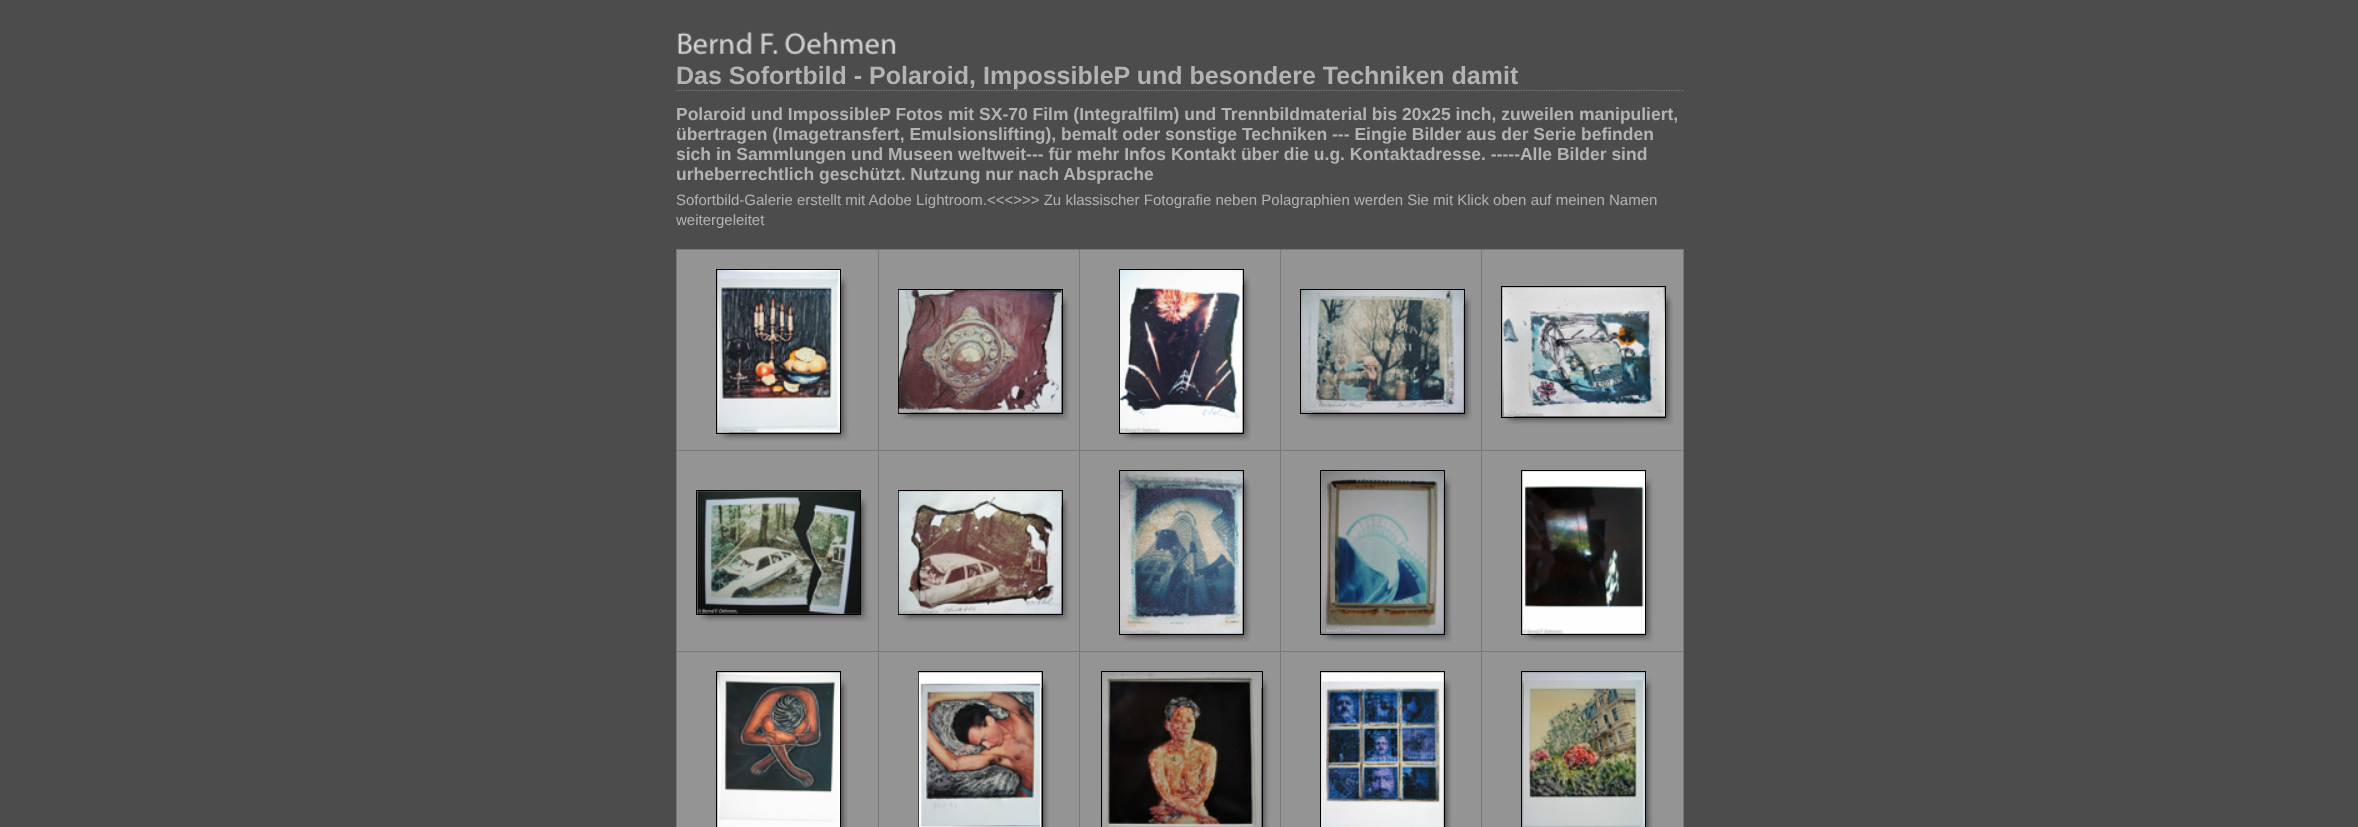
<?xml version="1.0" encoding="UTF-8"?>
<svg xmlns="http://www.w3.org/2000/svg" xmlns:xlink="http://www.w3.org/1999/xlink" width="2358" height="827">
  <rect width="100%" height="100%" fill="#4c4c4c" />
  <image x="677" y="31" width="219" height="24" xlink:href="image1.png" />
  <path d="M 676 90.5 h 1008" fill="none" stroke="#7f7f7f" stroke-width="1.2" stroke-dasharray="1.25 1.25" />
  <rect x="677" y="250" width="201" height="200" fill="#949494" />
  <rect x="676" y="249" width="1008" height="1" fill="#787878" />
  <rect x="676" y="249" width="1" height="201" fill="#787878" />
  <image x="728" y="285" width="121" height="156" xlink:href="image2.png" />
  <rect x="716.5" y="269.5" width="124" height="164" fill="none" stroke="#000000" />
  <image x="717" y="270" width="123" height="163" xlink:href="image3.png" />
  <image x="841" y="276" width="7" height="9" xlink:href="image4.png" />
  <image x="719" y="434" width="10" height="6" xlink:href="image5.png" />
  <rect x="879" y="250" width="200" height="200" fill="#949494" />
  <rect x="878" y="249" width="1" height="201" fill="#787878" />
  <image x="910" y="305" width="160" height="116" xlink:href="image6.png" />
  <rect x="898.5" y="289.5" width="164" height="124" fill="none" stroke="#000000" />
  <image x="898" y="290" width="164" height="123" xlink:href="image7.png" />
  <image x="1063" y="296" width="6" height="9" xlink:href="image8.png" />
  <image x="900" y="414" width="10" height="6" xlink:href="image9.png" />
  <rect x="1080" y="250" width="200" height="200" fill="#949494" />
  <rect x="1079" y="249" width="1" height="201" fill="#787878" />
  <image x="1131" y="285" width="120" height="156" xlink:href="image10.png" />
  <rect x="1119.5" y="269.5" width="124" height="164" fill="none" stroke="#000000" />
  <image x="1120" y="270" width="123" height="163" xlink:href="image11.png" />
  <image x="1244" y="275" width="6" height="10" xlink:href="image12.png" />
  <image x="1122" y="434" width="10" height="6" xlink:href="image13.png" />
  <rect x="1281" y="250" width="200" height="200" fill="#949494" />
  <rect x="1280" y="249" width="1" height="201" fill="#787878" />
  <image x="1312" y="305" width="160" height="116" xlink:href="image14.png" />
  <rect x="1300.5" y="289.5" width="164" height="124" fill="none" stroke="#000000" />
  <image x="1301" y="290" width="163" height="123" xlink:href="image15.png" />
  <image x="1465" y="295" width="7" height="10" xlink:href="image16.png" />
  <image x="1303" y="414" width="10" height="6" xlink:href="image17.png" />
  <rect x="1482" y="250" width="201" height="200" fill="#949494" />
  <rect x="1683" y="249" width="1" height="201" fill="#787878" />
  <rect x="1481" y="249" width="1" height="201" fill="#787878" />
  <image x="1513" y="302" width="161" height="123" xlink:href="image18.png" />
  <rect x="1501.5" y="286.5" width="164" height="131" fill="none" stroke="#000000" />
  <image x="1502" y="287" width="163" height="130" xlink:href="image19.png" />
  <image x="1666" y="293" width="7" height="10" xlink:href="image20.png" />
  <image x="1504" y="418" width="10" height="6" xlink:href="image21.png" />
  <rect x="677" y="451" width="201" height="200" fill="#949494" />
  <rect x="676" y="450" width="1008" height="1" fill="#787878" />
  <rect x="676" y="450" width="1" height="201" fill="#787878" />
  <image x="708" y="506" width="161" height="116" xlink:href="image22.png" />
  <rect x="696.5" y="490.5" width="164" height="124" fill="none" stroke="#000000" />
  <image x="697" y="491" width="163" height="123" xlink:href="image23.png" />
  <image x="861" y="497" width="7" height="10" xlink:href="image24.png" />
  <image x="699" y="615" width="10" height="7" xlink:href="image25.png" />
  <rect x="879" y="451" width="200" height="200" fill="#949494" />
  <rect x="878" y="450" width="1" height="201" fill="#787878" />
  <image x="910" y="506" width="160" height="116" xlink:href="image26.png" />
  <rect x="898.5" y="490.5" width="164" height="124" fill="none" stroke="#000000" />
  <image x="898" y="491" width="164" height="123" xlink:href="image27.png" />
  <image x="1063" y="497" width="6" height="10" xlink:href="image28.png" />
  <image x="900" y="615" width="10" height="7" xlink:href="image29.png" />
  <rect x="1080" y="451" width="200" height="200" fill="#949494" />
  <rect x="1079" y="450" width="1" height="201" fill="#787878" />
  <image x="1131" y="486" width="120" height="156" xlink:href="image30.png" />
  <rect x="1119.5" y="470.5" width="124" height="164" fill="none" stroke="#000000" />
  <image x="1120" y="471" width="123" height="163" xlink:href="image31.png" />
  <image x="1244" y="477" width="6" height="10" xlink:href="image32.png" />
  <image x="1122" y="635" width="10" height="7" xlink:href="image33.png" />
  <rect x="1281" y="451" width="200" height="200" fill="#949494" />
  <rect x="1280" y="450" width="1" height="201" fill="#787878" />
  <image x="1332" y="486" width="120" height="156" xlink:href="image34.png" />
  <rect x="1320.5" y="470.5" width="124" height="164" fill="none" stroke="#000000" />
  <image x="1321" y="471" width="123" height="163" xlink:href="image35.png" />
  <image x="1445" y="477" width="7" height="10" xlink:href="image36.png" />
  <image x="1323" y="635" width="10" height="7" xlink:href="image37.png" />
  <rect x="1482" y="451" width="201" height="200" fill="#949494" />
  <rect x="1683" y="450" width="1" height="201" fill="#787878" />
  <rect x="1481" y="450" width="1" height="201" fill="#787878" />
  <image x="1533" y="486" width="121" height="156" xlink:href="image38.png" />
  <rect x="1521.5" y="470.5" width="124" height="164" fill="none" stroke="#000000" />
  <image x="1522" y="471" width="123" height="163" xlink:href="image39.png" />
  <image x="1646" y="477" width="7" height="10" xlink:href="image40.png" />
  <image x="1524" y="635" width="10" height="7" xlink:href="image25.png" />
  <rect x="677" y="652" width="201" height="175" fill="#949494" />
  <rect x="676" y="651" width="1008" height="1" fill="#787878" />
  <rect x="676" y="651" width="1" height="176" fill="#787878" />
  <image x="841" y="687" width="7" height="140" xlink:href="image41.png" />
  <rect x="716.5" y="671.5" width="124" height="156" fill="none" stroke="#000000" />
  <image x="717" y="672" width="123" height="155" xlink:href="image42.png" />
  <image x="841" y="678" width="7" height="10" xlink:href="image43.png" />
  <rect x="879" y="652" width="200" height="175" fill="#949494" />
  <rect x="878" y="651" width="1" height="176" fill="#787878" />
  <image x="1041" y="687" width="9" height="140" xlink:href="image44.png" />
  <rect x="918.5" y="671.5" width="124" height="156" fill="none" stroke="#000000" />
  <image x="918" y="672" width="124" height="155" xlink:href="image45.png" />
  <image x="1043" y="678" width="6" height="10" xlink:href="image46.png" />
  <rect x="1080" y="652" width="200" height="175" fill="#949494" />
  <rect x="1079" y="651" width="1" height="176" fill="#787878" />
  <image x="1261" y="687" width="9" height="140" xlink:href="image44.png" />
  <rect x="1101.5" y="671.5" width="161" height="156" fill="none" stroke="#000000" />
  <image x="1102" y="672" width="160" height="155" xlink:href="image47.png" />
  <image x="1263" y="678" width="6" height="10" xlink:href="image48.png" />
  <rect x="1281" y="652" width="200" height="175" fill="#949494" />
  <rect x="1280" y="651" width="1" height="176" fill="#787878" />
  <image x="1443" y="687" width="9" height="140" xlink:href="image49.png" />
  <rect x="1320.5" y="671.5" width="124" height="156" fill="none" stroke="#000000" />
  <image x="1321" y="672" width="123" height="155" xlink:href="image50.png" />
  <image x="1445" y="678" width="7" height="10" xlink:href="image51.png" />
  <rect x="1482" y="652" width="201" height="175" fill="#949494" />
  <rect x="1683" y="651" width="1" height="176" fill="#787878" />
  <rect x="1481" y="651" width="1" height="176" fill="#787878" />
  <image x="1646" y="687" width="7" height="140" xlink:href="image52.png" />
  <rect x="1521.5" y="671.5" width="124" height="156" fill="none" stroke="#000000" />
  <image x="1522" y="672" width="123" height="155" xlink:href="image53.png" />
  <image x="1646" y="678" width="7" height="10" xlink:href="image43.png" />
  <text x="676" y="84" style="font-family: Liberation Sans; font-size: 25px; font-weight: bold; fill: #b3b3b3">Das Sofortbild - Polaroid, ImpossibleP und besondere Techniken damit</text>
  <text x="676" y="120" style="font-family: Liberation Sans; font-size: 17.5px; font-weight: bold; fill: #b3b3b3">Polaroid und ImpossibleP Fotos mit SX-70 Film (Integralfilm) und Trennbildmaterial bis 20x25 inch, zuweilen manipuliert,</text>
  <text x="676" y="140" style="font-family: Liberation Sans; font-size: 17.5px; font-weight: bold; fill: #b3b3b3">übertragen (Imagetransfert, Emulsionslifting), bemalt oder sonstige Techniken --- Eingie Bilder aus der Serie befinden</text>
  <text x="676" y="160" style="font-family: Liberation Sans; font-size: 17.5px; font-weight: bold; fill: #b3b3b3">sich in Sammlungen und Museen weltweit--- für mehr Infos Kontakt über die u.g. Kontaktadresse. -----Alle Bilder sind</text>
  <text x="676" y="180" style="font-family: Liberation Sans; font-size: 17.5px; font-weight: bold; fill: #b3b3b3">urheberrechtlich geschützt. Nutzung nur nach Absprache</text>
  <text x="676" y="205" style="font-family: Liberation Sans; font-size: 15px; fill: #b3b3b3">Sofortbild-Galerie erstellt mit Adobe Lightroom.&lt;&lt;&lt;&gt;&gt;&gt; Zu klassischer Fotografie neben Polagraphien werden Sie mit Klick oben auf meinen Namen</text>
  <text x="676" y="225" style="font-family: Liberation Sans; font-size: 15px; fill: #b3b3b3">weitergeleitet</text>
</svg>
